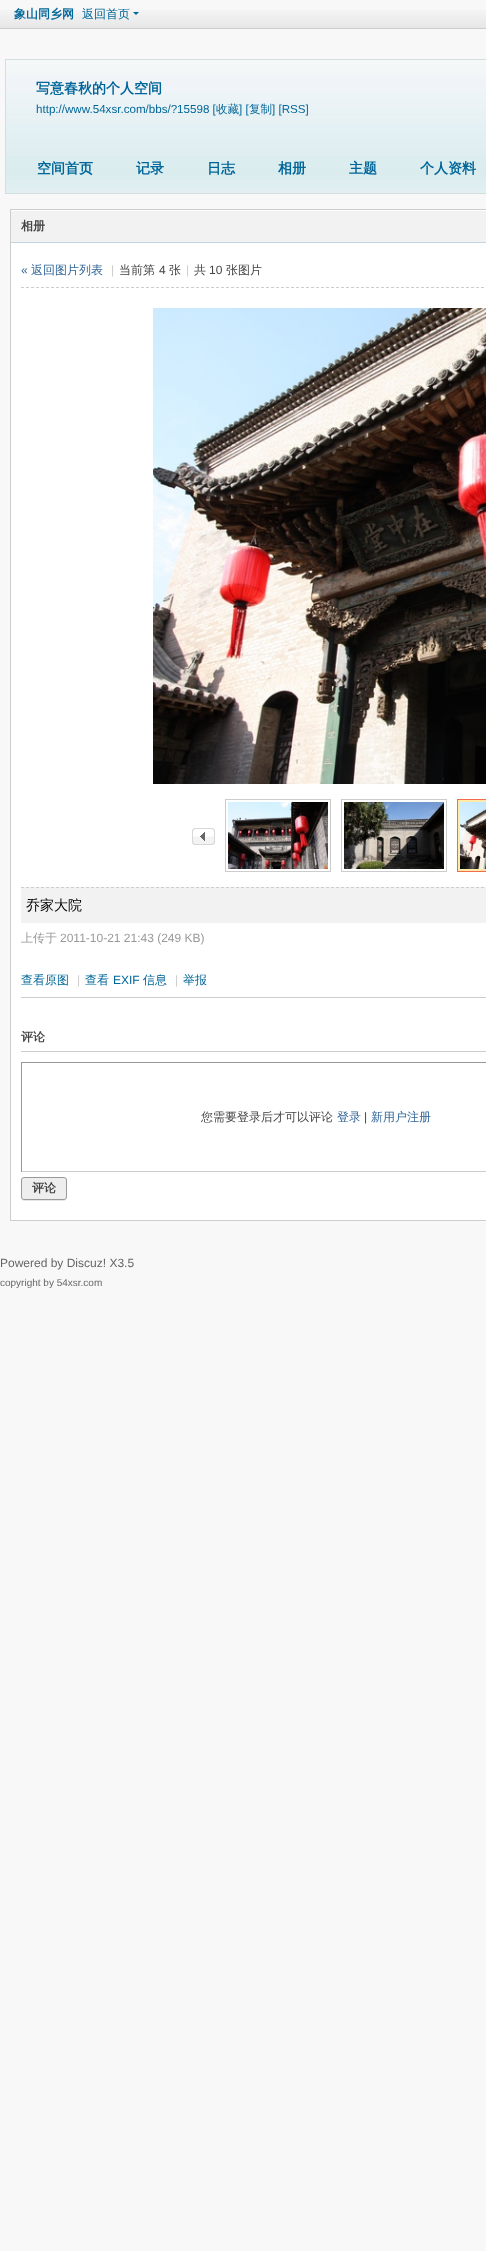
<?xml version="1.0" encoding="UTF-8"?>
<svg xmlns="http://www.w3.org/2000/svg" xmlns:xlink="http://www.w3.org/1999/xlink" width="486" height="2251">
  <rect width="100%" height="100%" fill="#f8f8f8" />
  <image x="0" y="10" width="486" height="18" xlink:href="image1.png" />
  <rect y="28" width="486" height="1" fill="#cdcdcd" />
  <path d="M 133 12 h 6 l -3 3 z" fill="#006699" />
  <image x="6" y="60" width="480" height="133" xlink:href="image2.png" />
  <rect x="5.5" y="59.5" width="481" height="134" fill="none" stroke="#d3dfdf" />
  <rect x="11" y="243" width="475" height="977" fill="#ffffff" />
  <rect x="10.5" y="209.5" width="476" height="1011" fill="none" stroke="#cdcdcd" />
  <rect x="11" y="211" width="475" height="31" fill="#f2f2f2" />
  <rect x="11" y="210" width="475" height="1" fill="#ffffff" />
  <rect x="11" y="242" width="475" height="1" fill="#c2d5e3" />
  <path d="M 21 287.5 h 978" fill="none" stroke="#cdcdcd" stroke-dasharray="3 2" />
  <image x="153" y="308" width="333" height="476" xlink:href="image3.png" />
  <rect x="225.5" y="799.5" width="105" height="72" fill="none" stroke="#cccccc" />
  <rect x="341.5" y="799.5" width="105" height="72" fill="none" stroke="#cccccc" />
  <rect x="457.5" y="799.5" width="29" height="72" fill="#ffeaa8" stroke="#f26c4f" />
  <image x="192" y="828" width="23" height="17" xlink:href="image4.png" />
  <image x="228" y="802" width="100" height="67" xlink:href="image5.png" />
  <image x="344" y="802" width="100" height="67" xlink:href="image6.png" />
  <image x="460" y="802" width="26" height="67" xlink:href="image7.png" />
  <rect x="21" y="997" width="465" height="1" fill="#cdcdcd" />
  <rect x="21" y="887" width="465" height="36" fill="#f2f2f2" />
  <path d="M 21 887.5 h 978" fill="none" stroke="#cdcdcd" stroke-dasharray="3 2" />
  <rect x="21" y="1051" width="465" height="1" fill="#cdcdcd" />
  <rect x="21" y="1062" width="465" height="1" fill="#999999" />
  <rect x="21" y="1171" width="465" height="1" fill="#cccccc" />
  <rect x="21" y="1062" width="1" height="110" fill="#999999" />
  <path d="M 21 1197 c 0 5 5 4 10 4 h 26 c 5 0 10 1 10 -4 c 0 2 -1 3 -3 3 h -40 c -2 0 -3 -1 -3 -3 z" fill="#e5e5e5" />
  <rect x="21.5" y="1177.5" width="45" height="22" rx="2.5" fill="#eeeeee" stroke="#999999" />
  <text x="14" y="18" style="font-family: WenQuanYi Zen Hei; font-size: 12px; font-weight: bold; fill: #006699">象山同乡网</text>
  <text x="82" y="18" style="font-family: WenQuanYi Zen Hei; font-size: 12px; font-weight: 500; fill: #006699">返回首页</text>
  <text x="36" y="93" style="font-family: WenQuanYi Zen Hei; font-size: 14px; font-weight: bold; fill: #006699">写意春秋的个人空间</text>
  <text x="36" y="113" style="font-family: Liberation Sans; font-size: 11.6px; fill: #006699">http://www.54xsr.com/bbs/?15598 [</text>
  <text x="216" y="113" style="font-family: WenQuanYi Zen Hei; font-size: 11.6px; font-weight: 500; fill: #006699">收藏</text>
  <text x="239" y="113" style="font-family: Liberation Sans; font-size: 11.6px; fill: #006699">] [</text>
  <text x="249" y="113" style="font-family: WenQuanYi Zen Hei; font-size: 11.6px; font-weight: 500; fill: #006699">复制</text>
  <text x="272" y="113" style="font-family: Liberation Sans; font-size: 11.6px; fill: #006699">] [RSS]</text>
  <text x="37" y="173" style="font-family: WenQuanYi Zen Hei; font-size: 14px; font-weight: bold; fill: #006699">空间首页</text>
  <text x="136" y="173" style="font-family: WenQuanYi Zen Hei; font-size: 14px; font-weight: bold; fill: #006699">记录</text>
  <text x="207" y="173" style="font-family: WenQuanYi Zen Hei; font-size: 14px; font-weight: bold; fill: #006699">日志</text>
  <text x="278" y="173" style="font-family: WenQuanYi Zen Hei; font-size: 14px; font-weight: bold; fill: #006699">相册</text>
  <text x="349" y="173" style="font-family: WenQuanYi Zen Hei; font-size: 14px; font-weight: bold; fill: #006699">主题</text>
  <text x="420" y="173" style="font-family: WenQuanYi Zen Hei; font-size: 14px; font-weight: bold; fill: #006699">个人资料</text>
  <text x="21" y="230" style="font-family: WenQuanYi Zen Hei; font-size: 12px; font-weight: bold; fill: #444444">相册</text>
  <text x="21" y="274" style="font-family: Liberation Sans; font-size: 12px; fill: #336699">«</text>
  <text x="31" y="274" style="font-family: WenQuanYi Zen Hei; font-size: 12px; font-weight: 500; fill: #336699">返回图片列表</text>
  <text x="111" y="274" style="font-family: Liberation Sans; font-size: 12px; fill: #cccccc">|</text>
  <text x="119" y="274" style="font-family: WenQuanYi Zen Hei; font-size: 12px; font-weight: 500; fill: #444444">当前第</text>
  <text x="159" y="274" style="font-family: Liberation Sans; font-size: 12px; fill: #444444">4</text>
  <text x="169" y="274" style="font-family: WenQuanYi Zen Hei; font-size: 12px; font-weight: 500; fill: #444444">张</text>
  <text x="186" y="274" style="font-family: Liberation Sans; font-size: 12px; fill: #cccccc">|</text>
  <text x="194" y="274" style="font-family: WenQuanYi Zen Hei; font-size: 12px; font-weight: 500; fill: #444444">共</text>
  <text x="209" y="274" style="font-family: Liberation Sans; font-size: 12px; fill: #444444">10</text>
  <text x="226" y="274" style="font-family: WenQuanYi Zen Hei; font-size: 12px; font-weight: 500; fill: #444444">张图片</text>
  <text x="26" y="910" style="font-family: WenQuanYi Zen Hei; font-size: 14px; font-weight: 500; fill: #000000">乔家大院</text>
  <text x="21" y="942" style="font-family: WenQuanYi Zen Hei; font-size: 12px; font-weight: 500; fill: #999999">上传于</text>
  <text x="60" y="942" style="font-family: Liberation Sans; font-size: 12px; fill: #999999">2011-10-21 21:43 (249 KB)</text>
  <text x="21" y="984" style="font-family: WenQuanYi Zen Hei; font-size: 12px; font-weight: 500; fill: #006699">查看原图</text>
  <text x="77" y="984" style="font-family: Liberation Sans; font-size: 12px; fill: #cccccc">|</text>
  <text x="85" y="984" style="font-family: WenQuanYi Zen Hei; font-size: 12px; font-weight: 500; fill: #006699">查看</text>
  <text x="113" y="984" style="font-family: Liberation Sans; font-size: 12px; fill: #006699">EXIF</text>
  <text x="143" y="984" style="font-family: WenQuanYi Zen Hei; font-size: 12px; font-weight: 500; fill: #006699">信息</text>
  <text x="175" y="984" style="font-family: Liberation Sans; font-size: 12px; fill: #cccccc">|</text>
  <text x="183" y="984" style="font-family: WenQuanYi Zen Hei; font-size: 12px; font-weight: 500; fill: #006699">举报</text>
  <text x="21" y="1041" style="font-family: WenQuanYi Zen Hei; font-size: 12px; font-weight: bold; fill: #444444">评论</text>
  <text x="201" y="1121" style="font-family: WenQuanYi Zen Hei; font-size: 12px; font-weight: 500; fill: #444444">您需要登录后才可以评论</text>
  <text x="337" y="1121" style="font-family: WenQuanYi Zen Hei; font-size: 12px; font-weight: 500; fill: #336699">登录</text>
  <text x="364" y="1121" style="font-family: Liberation Sans; font-size: 12px; fill: #444444">|</text>
  <text x="371" y="1121" style="font-family: WenQuanYi Zen Hei; font-size: 12px; font-weight: 500; fill: #336699">新用户注册</text>
  <text x="32" y="1192" style="font-family: WenQuanYi Zen Hei; font-size: 12px; font-weight: bold; fill: #444444">评论</text>
  <text x="0" y="1267" style="font-family: Liberation Sans; font-size: 12px; fill: #666666">Powered by Discuz! X3.5</text>
  <text x="0" y="1286" style="font-family: Liberation Sans; font-size: 10px; fill: #666666">copyright by 54xsr.com</text>
</svg>
